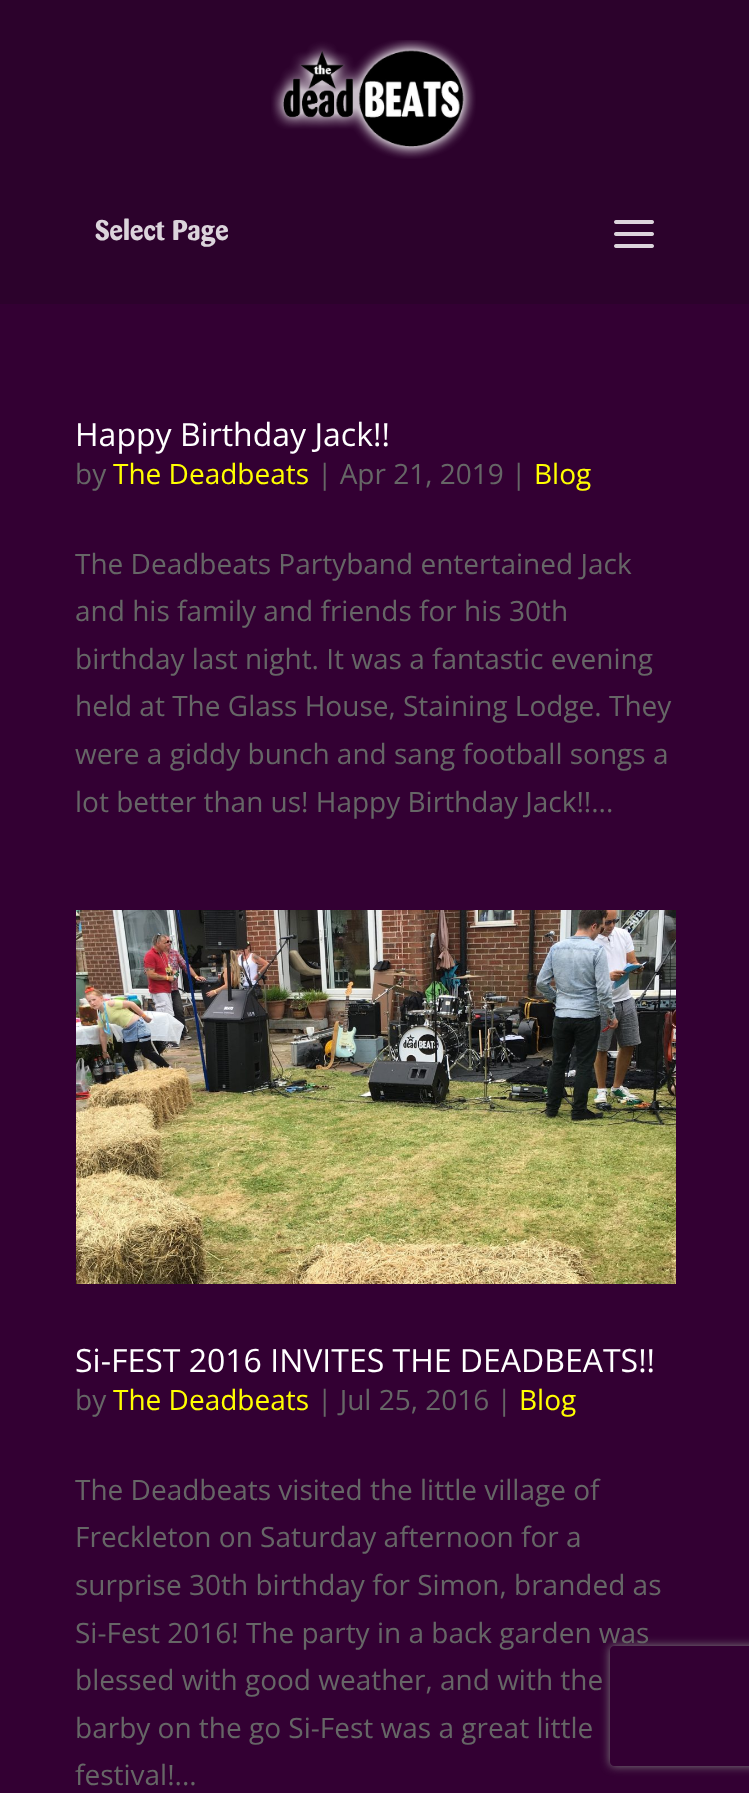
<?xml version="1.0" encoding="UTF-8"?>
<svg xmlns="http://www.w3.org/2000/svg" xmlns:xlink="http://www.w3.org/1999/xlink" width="749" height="1793">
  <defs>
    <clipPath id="clip1"><path d="M 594 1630 h 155 v 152 h -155 z m 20 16 h 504 c 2 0 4 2 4 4 v 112 c 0 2 -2 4 -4 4 h -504 c -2 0 -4 -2 -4 -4 v -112 c 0 -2 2 -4 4 -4 z" clip-rule="evenodd" /></clipPath>
  </defs>
  <rect width="100%" height="100%" fill="#330033" />
  <rect width="749" height="304" fill="#2c022c" />
  <image x="271" y="40" width="205" height="119" xlink:href="image1.png" />
  <image x="614" y="220" width="40" height="28" xlink:href="image2.png" />
  <image x="76" y="910" width="600" height="374" xlink:href="image3.png" />
  <g clip-path="url(#clip1)">
    <rect x="610" y="1646" width="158" height="120" rx="4" fill="#808080" filter="blur(5px)" />
  </g>
  <text x="95" y="240" style="font-family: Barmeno; font-size: 28px; font-weight: bold; fill: #dbd4db">Select Page</text>
  <text x="75" y="446" style="font-family: Open Sans; font-size: 32px; fill: #ffffff">Happy Birthday Jack!!</text>
  <text x="75" y="484" style="font-family: Open Sans; font-size: 28px; fill: #666666">by</text>
  <text x="113" y="484" style="font-family: Open Sans; font-size: 28px; fill: #ffff00">The Deadbeats</text>
  <text x="317" y="484" style="font-family: Open Sans; font-size: 28px; fill: #666666">| Apr 21, 2019 |</text>
  <text x="534" y="484" style="font-family: Open Sans; font-size: 28px; fill: #ffff00">Blog</text>
  <text x="75" y="574" style="font-family: Open Sans; font-size: 28px; fill: #666666">The Deadbeats Partyband entertained Jack</text>
  <text x="75" y="621" style="font-family: Open Sans; font-size: 28px; fill: #666666">and his family and friends for his 30th</text>
  <text x="75" y="669" style="font-family: Open Sans; font-size: 28px; fill: #666666">birthday last night. It was a fantastic evening</text>
  <text x="75" y="716" style="font-family: Open Sans; font-size: 28px; fill: #666666">held at The Glass House, Staining Lodge. They</text>
  <text x="75" y="764" style="font-family: Open Sans; font-size: 28px; fill: #666666">were a giddy bunch and sang football songs a</text>
  <text x="75" y="812" style="font-family: Open Sans; font-size: 28px; fill: #666666">lot better than us! Happy Birthday Jack!!...</text>
  <text x="75" y="1372" style="font-family: Open Sans; font-size: 32px; fill: #ffffff">Si-FEST 2016 INVITES THE DEADBEATS!!</text>
  <text x="75" y="1410" style="font-family: Open Sans; font-size: 28px; fill: #666666">by</text>
  <text x="113" y="1410" style="font-family: Open Sans; font-size: 28px; fill: #ffff00">The Deadbeats</text>
  <text x="317" y="1410" style="font-family: Open Sans; font-size: 28px; fill: #666666">| Jul 25, 2016 |</text>
  <text x="519" y="1410" style="font-family: Open Sans; font-size: 28px; fill: #ffff00">Blog</text>
  <text x="75" y="1500" style="font-family: Open Sans; font-size: 28px; fill: #666666">The Deadbeats visited the little village of</text>
  <text x="75" y="1547" style="font-family: Open Sans; font-size: 28px; fill: #666666">Freckleton on Saturday afternoon for a</text>
  <text x="75" y="1595" style="font-family: Open Sans; font-size: 28px; fill: #666666">surprise 30th birthday for Simon, branded as</text>
  <text x="75" y="1643" style="font-family: Open Sans; font-size: 28px; fill: #666666">Si-Fest 2016! The party in a back garden was</text>
  <text x="75" y="1690" style="font-family: Open Sans; font-size: 28px; fill: #666666">blessed with good weather, and with the</text>
  <text x="75" y="1738" style="font-family: Open Sans; font-size: 28px; fill: #666666">barby on the go Si-Fest was a great little</text>
  <text x="75" y="1785" style="font-family: Open Sans; font-size: 28px; fill: #666666">festival!...</text>
</svg>
